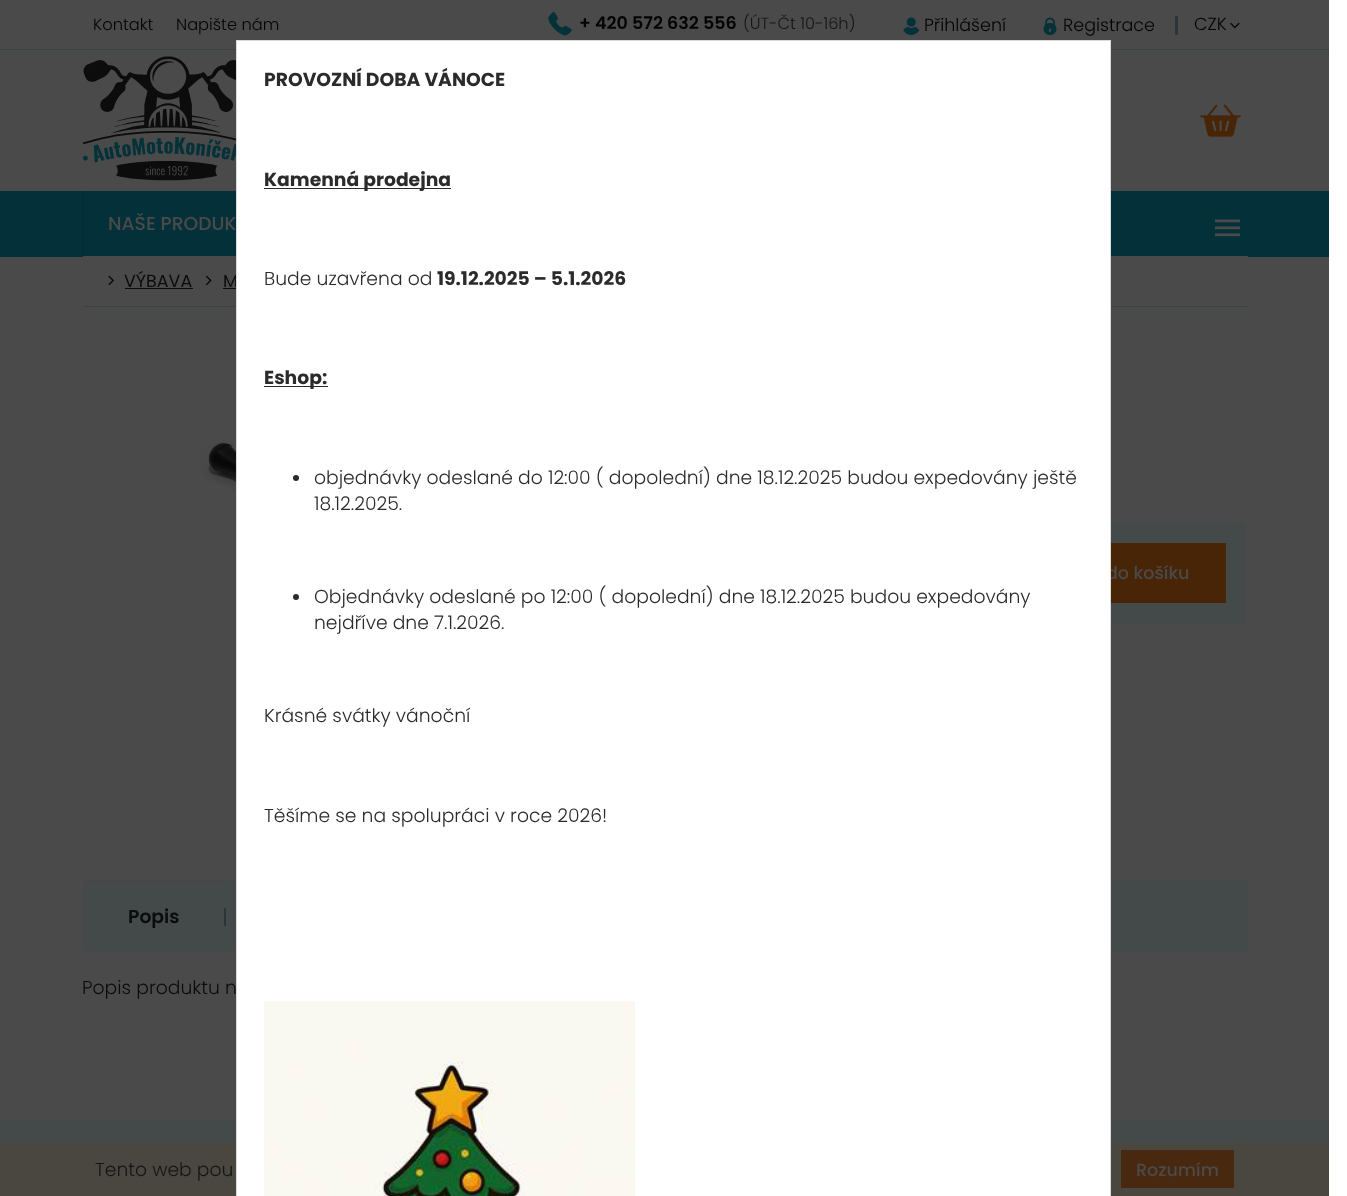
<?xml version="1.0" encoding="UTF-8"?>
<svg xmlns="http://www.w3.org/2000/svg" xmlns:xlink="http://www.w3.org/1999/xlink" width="1347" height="1196">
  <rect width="100%" height="100%" fill="#ffffff" />
  <rect width="1329" height="1119" fill="#4a4a4a" />
  <rect y="49" width="1329" height="1" fill="#3b4244" />
  <image x="548" y="12" width="24" height="24" xlink:href="image1.png" />
  <image x="903" y="17" width="16" height="18" xlink:href="image2.png" />
  <image x="1043" y="17" width="14" height="18" xlink:href="image3.png" />
  <rect x="1175" y="16" width="3" height="19" fill="#2c3537" />
  <image x="1230" y="22" width="10" height="7" xlink:href="image4.png" />
  <rect y="191" width="1329" height="66" fill="#043139" />
  <image x="83" y="56" width="153" height="125" xlink:href="image5.png" />
  <image x="1200" y="104" width="41" height="33" xlink:href="image6.png" />
  <rect x="83" y="191" width="1" height="65" fill="#07282e" />
  <image x="1215" y="219" width="25" height="18" xlink:href="image7.png" />
  <rect x="83" y="256" width="1165" height="1" fill="#4a4a4a" />
  <rect x="83" y="306" width="1165" height="1" fill="#3b4244" />
  <image x="108" y="275" width="6" height="11" xlink:href="image8.png" />
  <rect x="125" y="288" width="68" height="1" fill="#0c0c0c" />
  <image x="205" y="275" width="7" height="11" xlink:href="image9.png" />
  <rect x="223" y="288" width="13" height="1" fill="#0c0c0c" />
  <image x="201" y="442" width="35" height="119" xlink:href="image10.png" />
  <rect x="1111" y="523" width="135" height="100" fill="#44494a" />
  <rect x="1111" y="543" width="115" height="60" fill="#482507" />
  <rect x="83" y="880" width="1165" height="71" fill="#44494a" />
  <rect x="83" y="880" width="143" height="3" fill="#474747" />
  <rect x="224" y="908" width="2" height="18" fill="#2c3537" />
  <rect y="1119" width="1329" height="24" fill="#44494a" />
  <rect y="1143" width="1329" height="53" fill="#494740" />
  <rect x="1121" y="1150" width="113" height="38" fill="#48280e" />
  <text x="93" y="30" style="font-family: Poppins; font-size: 16.25px; font-weight: 300; fill: #030303">Kontakt</text>
  <text x="176" y="30" style="font-family: Poppins; font-size: 16.25px; font-weight: 300; fill: #030303">Napište nám</text>
  <text x="579" y="29" style="font-family: Poppins; font-size: 17.5px; font-weight: 600; fill: #030303">+ 420 572 632 556</text>
  <text x="743" y="29" style="font-family: Poppins; font-size: 16.25px; font-weight: 300; fill: #151515">(ÚT-Čt 10-16h)</text>
  <text x="924" y="31" style="font-family: Poppins; font-size: 17.5px; font-weight: 300; fill: #030303">Přihlášení</text>
  <text x="1063" y="31" style="font-family: Poppins; font-size: 17.5px; font-weight: 300; fill: #030303">Registrace</text>
  <text x="1194" y="30" style="font-family: Poppins; font-size: 17.5px; font-weight: 300; fill: #030303">CZK</text>
  <text x="108" y="230" style="font-family: Poppins; font-size: 18.75px; font-weight: 500; fill: #4a4a4a">NAŠE PRODUK</text>
  <text x="124" y="287" style="font-family: Poppins; font-size: 17.5px; fill: #0c0c0c">VÝBAVA</text>
  <text x="223" y="287" style="font-family: Poppins; font-size: 17.5px; fill: #0c0c0c">M</text>
  <text x="1106" y="579" style="font-family: Poppins; font-size: 17.5px; font-weight: 500; fill: #4a4a4a">do košíku</text>
  <text x="128" y="923" style="font-family: Poppins; font-size: 18.75px; font-weight: 600; fill: #0c0c0c">Popis</text>
  <text x="82" y="994" style="font-family: Poppins; font-size: 18.75px; font-weight: 300; fill: #0c0c0c">Popis produktu n</text>
  <rect x="236.5" y="40.5" width="874" height="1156" fill="#ffffff" stroke="#dadada" />
  <text x="264" y="86" style="font-family: Poppins; font-size: 18.75px; font-weight: bold; fill: #2b2b2b">PROVOZNÍ DOBA VÁNOCE</text>
  <rect x="264" y="188" width="187" height="1" fill="#2b2b2b" />
  <text x="264" y="186" style="font-family: Poppins; font-size: 18.75px; font-weight: bold; fill: #2b2b2b">Kamenná prodejna</text>
  <text x="264" y="285" style="font-family: Poppins; font-size: 18.75px; font-weight: 300; fill: #2b2b2b">Bude uzavřena od</text>
  <text x="437" y="285" style="font-family: Poppins; font-size: 18.75px; font-weight: bold; fill: #2b2b2b">19.12.2025 – 5.1.2026</text>
  <rect x="264" y="386" width="64" height="1" fill="#2b2b2b" />
  <text x="264" y="384" style="font-family: Poppins; font-size: 18.75px; font-weight: bold; fill: #2b2b2b">Eshop:</text>
  <circle cx="296" cy="478" r="3" fill="#2b2b2b" />
  <text x="314" y="484" style="font-family: Poppins; font-size: 18.75px; font-weight: 300; fill: #2b2b2b">objednávky odeslané do 12:00 ( dopolední) dne 18.12.2025 budou expedovány ještě</text>
  <text x="314" y="510" style="font-family: Poppins; font-size: 18.75px; font-weight: 300; fill: #2b2b2b">18.12.2025.</text>
  <circle cx="296" cy="597" r="3" fill="#2b2b2b" />
  <text x="314" y="603" style="font-family: Poppins; font-size: 18.75px; font-weight: 300; fill: #2b2b2b">Objednávky odeslané po 12:00 ( dopolední) dne 18.12.2025 budou expedovány</text>
  <text x="314" y="629" style="font-family: Poppins; font-size: 18.75px; font-weight: 300; fill: #2b2b2b">nejdříve dne 7.1.2026.</text>
  <text x="264" y="722" style="font-family: Poppins; font-size: 18.75px; font-weight: 300; fill: #2b2b2b">Krásné svátky vánoční</text>
  <text x="264" y="822" style="font-family: Poppins; font-size: 18.75px; font-weight: 300; fill: #2b2b2b">Těšíme se na spolupráci v roce 2026!</text>
  <image x="264" y="1001" width="371" height="195" xlink:href="image11.png" />
  <text x="95" y="1176" style="font-family: Poppins; font-size: 18.75px; font-weight: 300; fill: #151515">Tento web pou</text>
  <text x="1136" y="1176" style="font-family: Poppins; font-size: 17.5px; font-weight: 500; fill: #4a4a4a">Rozumím</text>
</svg>
